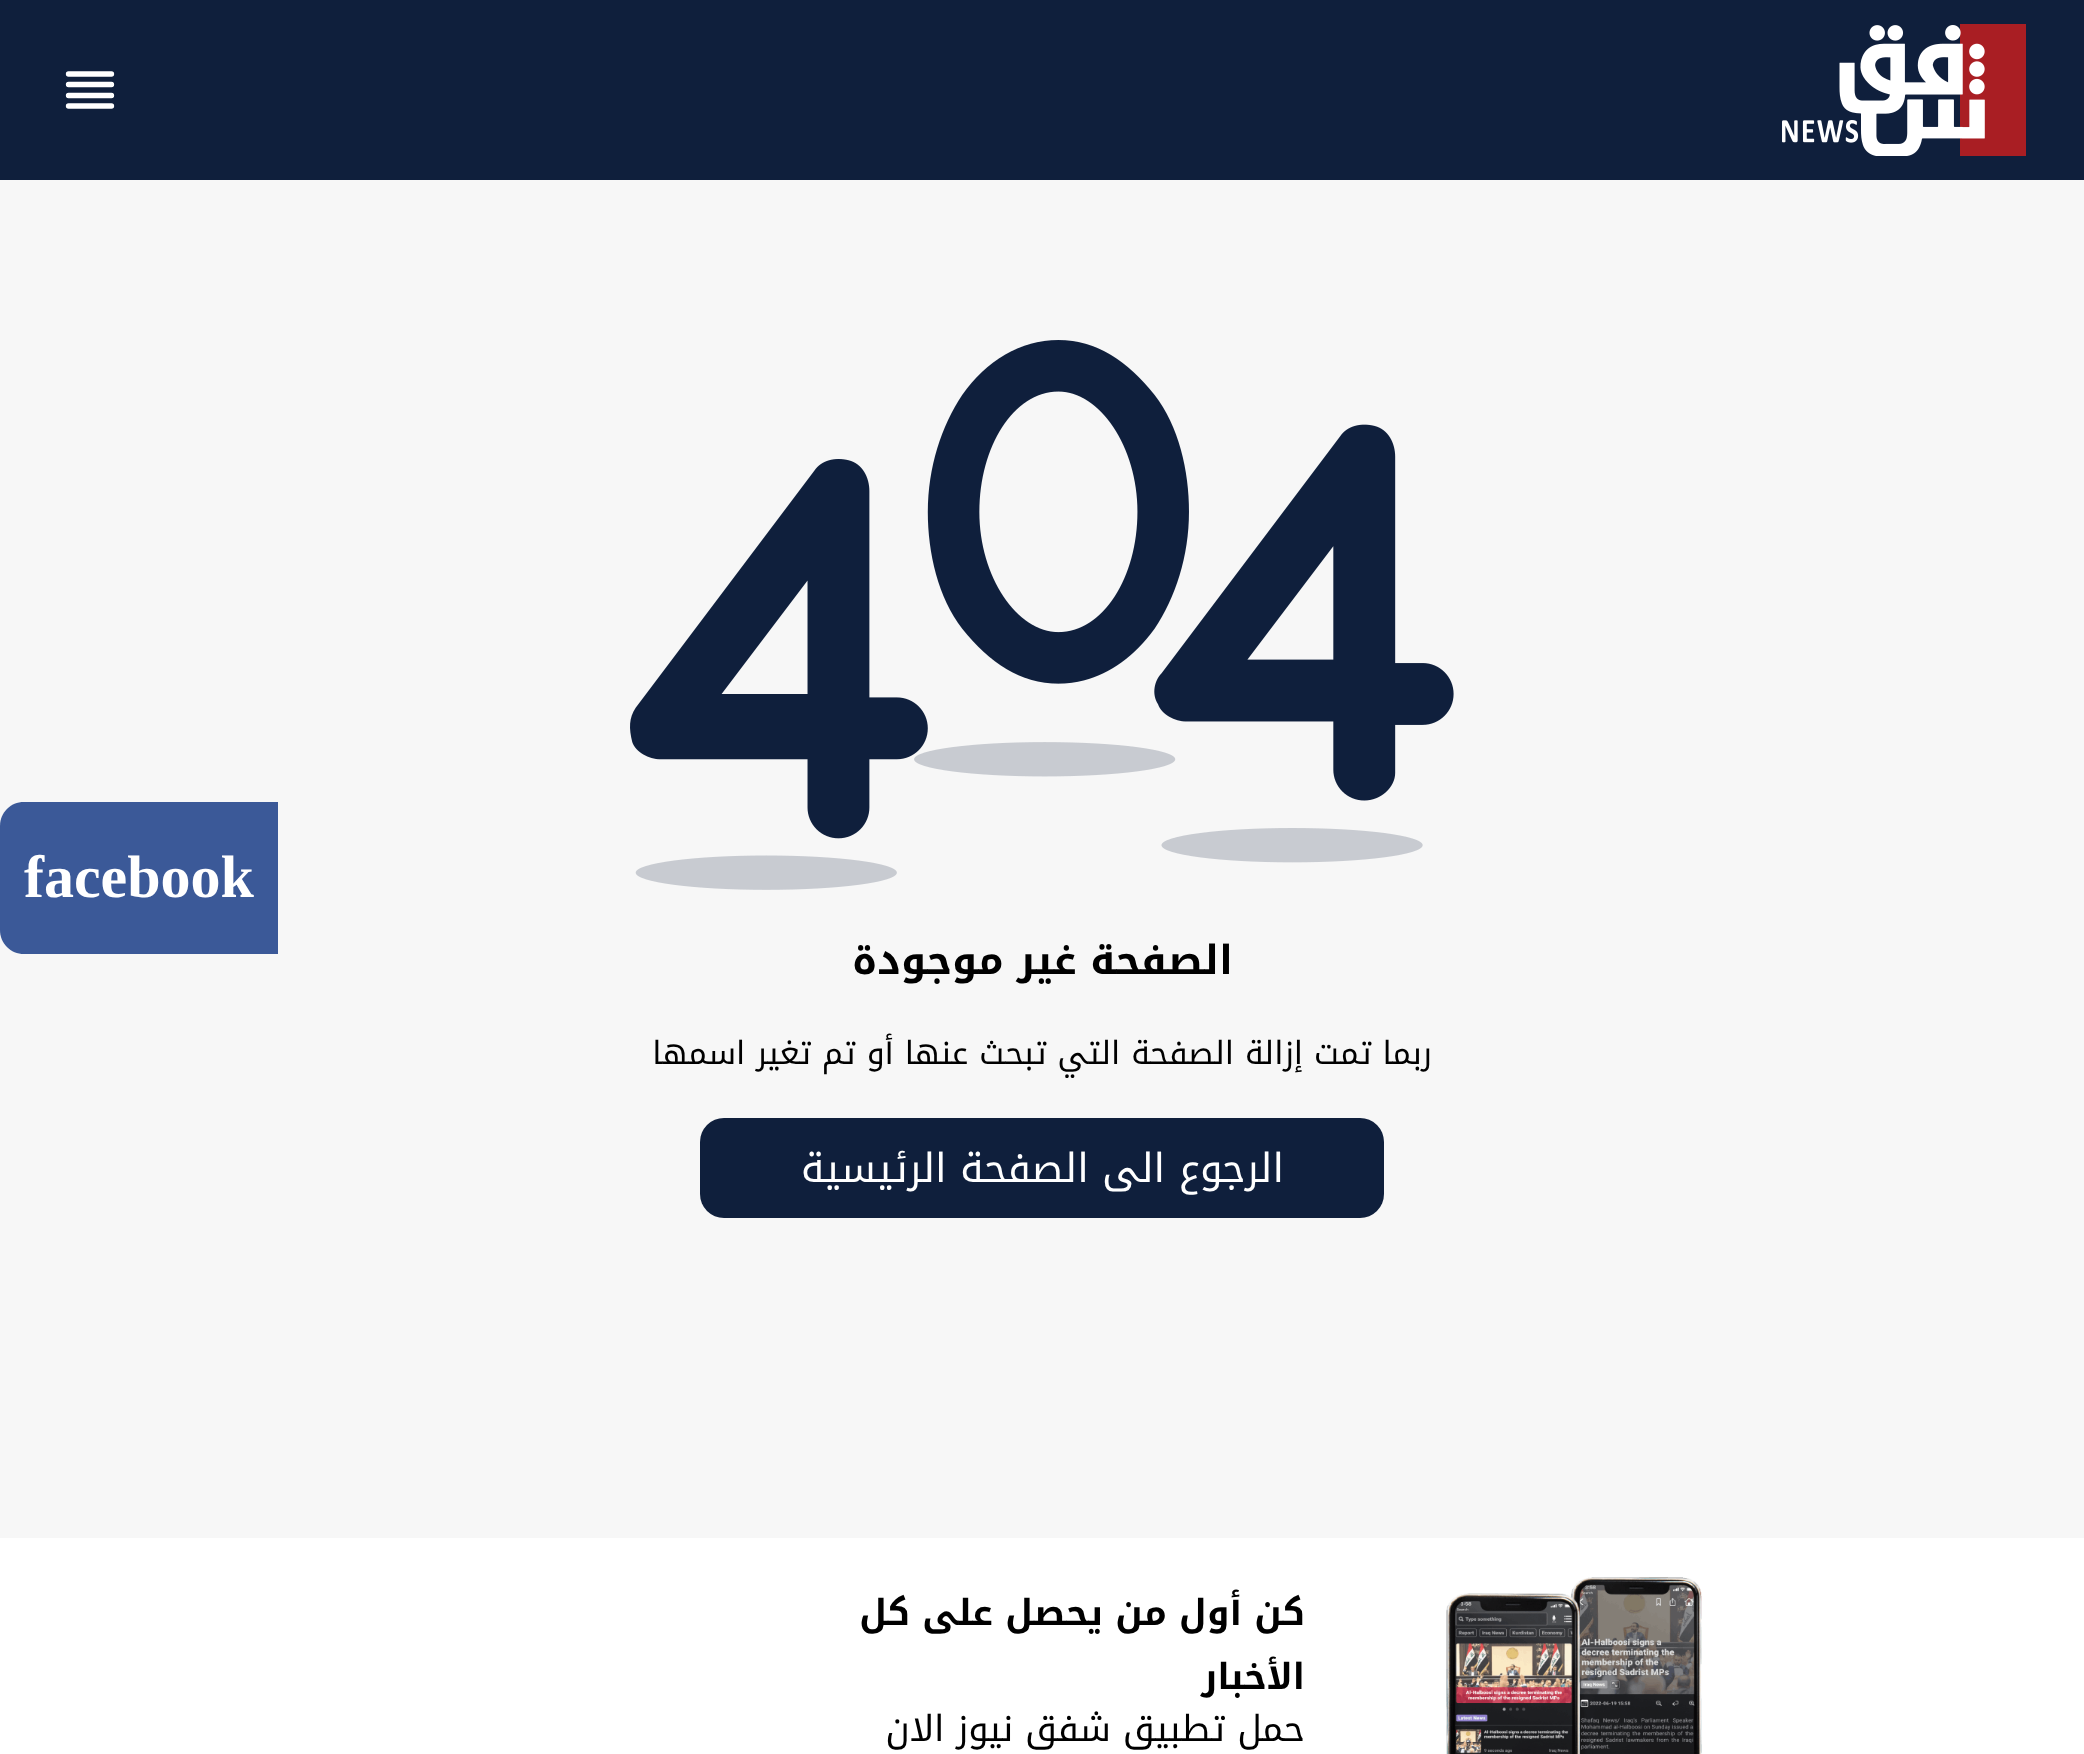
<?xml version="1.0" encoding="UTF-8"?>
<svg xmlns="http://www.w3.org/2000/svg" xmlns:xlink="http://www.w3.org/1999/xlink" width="2084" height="1754">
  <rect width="100%" height="100%" fill="#f7f7f7" />
  <rect width="2084" height="180" fill="#0f1f3c" />
  <image x="1782" y="24" width="244" height="132" xlink:href="image1.png" />
  <path d="M 68.5 74 h 43 m -43 10.5 h 43 m -43 11 h 43 m -43 10.5 h 43" fill="none" stroke="#ffffff" stroke-width="5.3" stroke-linecap="round" stroke-linejoin="round" />
  <path d="M 24 802 h 254 v 152 h -254 c -13.5 0 -24 -10.5 -24 -24 v -104 c 0 -13.5 10.5 -24 24 -24 z" fill="#3b5998" />
  <image x="630" y="340" width="824" height="550" xlink:href="image2.png" />
  <rect x="700" y="1118" width="684" height="100" rx="24" fill="#0f1f3c" />
  <rect y="1538" width="2084" height="216" fill="#ffffff" />
  <image x="1446" y="1577" width="256" height="177" xlink:href="image3.png" />
  <text x="24" y="897" style="font-family: Liberation Serif; font-size: 60px; font-weight: bold; fill: #ffffff">facebook</text>
  <text x="1233" y="974" style="font-family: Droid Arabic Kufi; font-size: 40px; font-weight: bold; direction: rtl; fill: #000000">الصفحة غير موجودة</text>
  <text x="1432" y="1064" style="font-family: Droid Arabic Kufi; font-size: 32px; direction: rtl; fill: #000000">ربما تمت إزالة الصفحة التي تبحث عنها أو تم تغير اسمها</text>
  <text x="1284" y="1182" style="font-family: Droid Arabic Kufi; font-size: 40px; direction: rtl; fill: #ffffff">الرجوع الى الصفحة الرئيسية</text>
  <text x="1305" y="1625" style="font-family: Droid Arabic Kufi; font-size: 36px; font-weight: bold; direction: rtl; fill: #000000">كن أول من يحصل على كل</text>
  <text x="1305" y="1689" style="font-family: Droid Arabic Kufi; font-size: 36px; font-weight: bold; direction: rtl; fill: #000000">الأخبار</text>
  <text x="1305" y="1741" style="font-family: Droid Arabic Kufi; font-size: 36px; direction: rtl; fill: #000000">حمل تطبيق شفق نيوز الان</text>
</svg>
